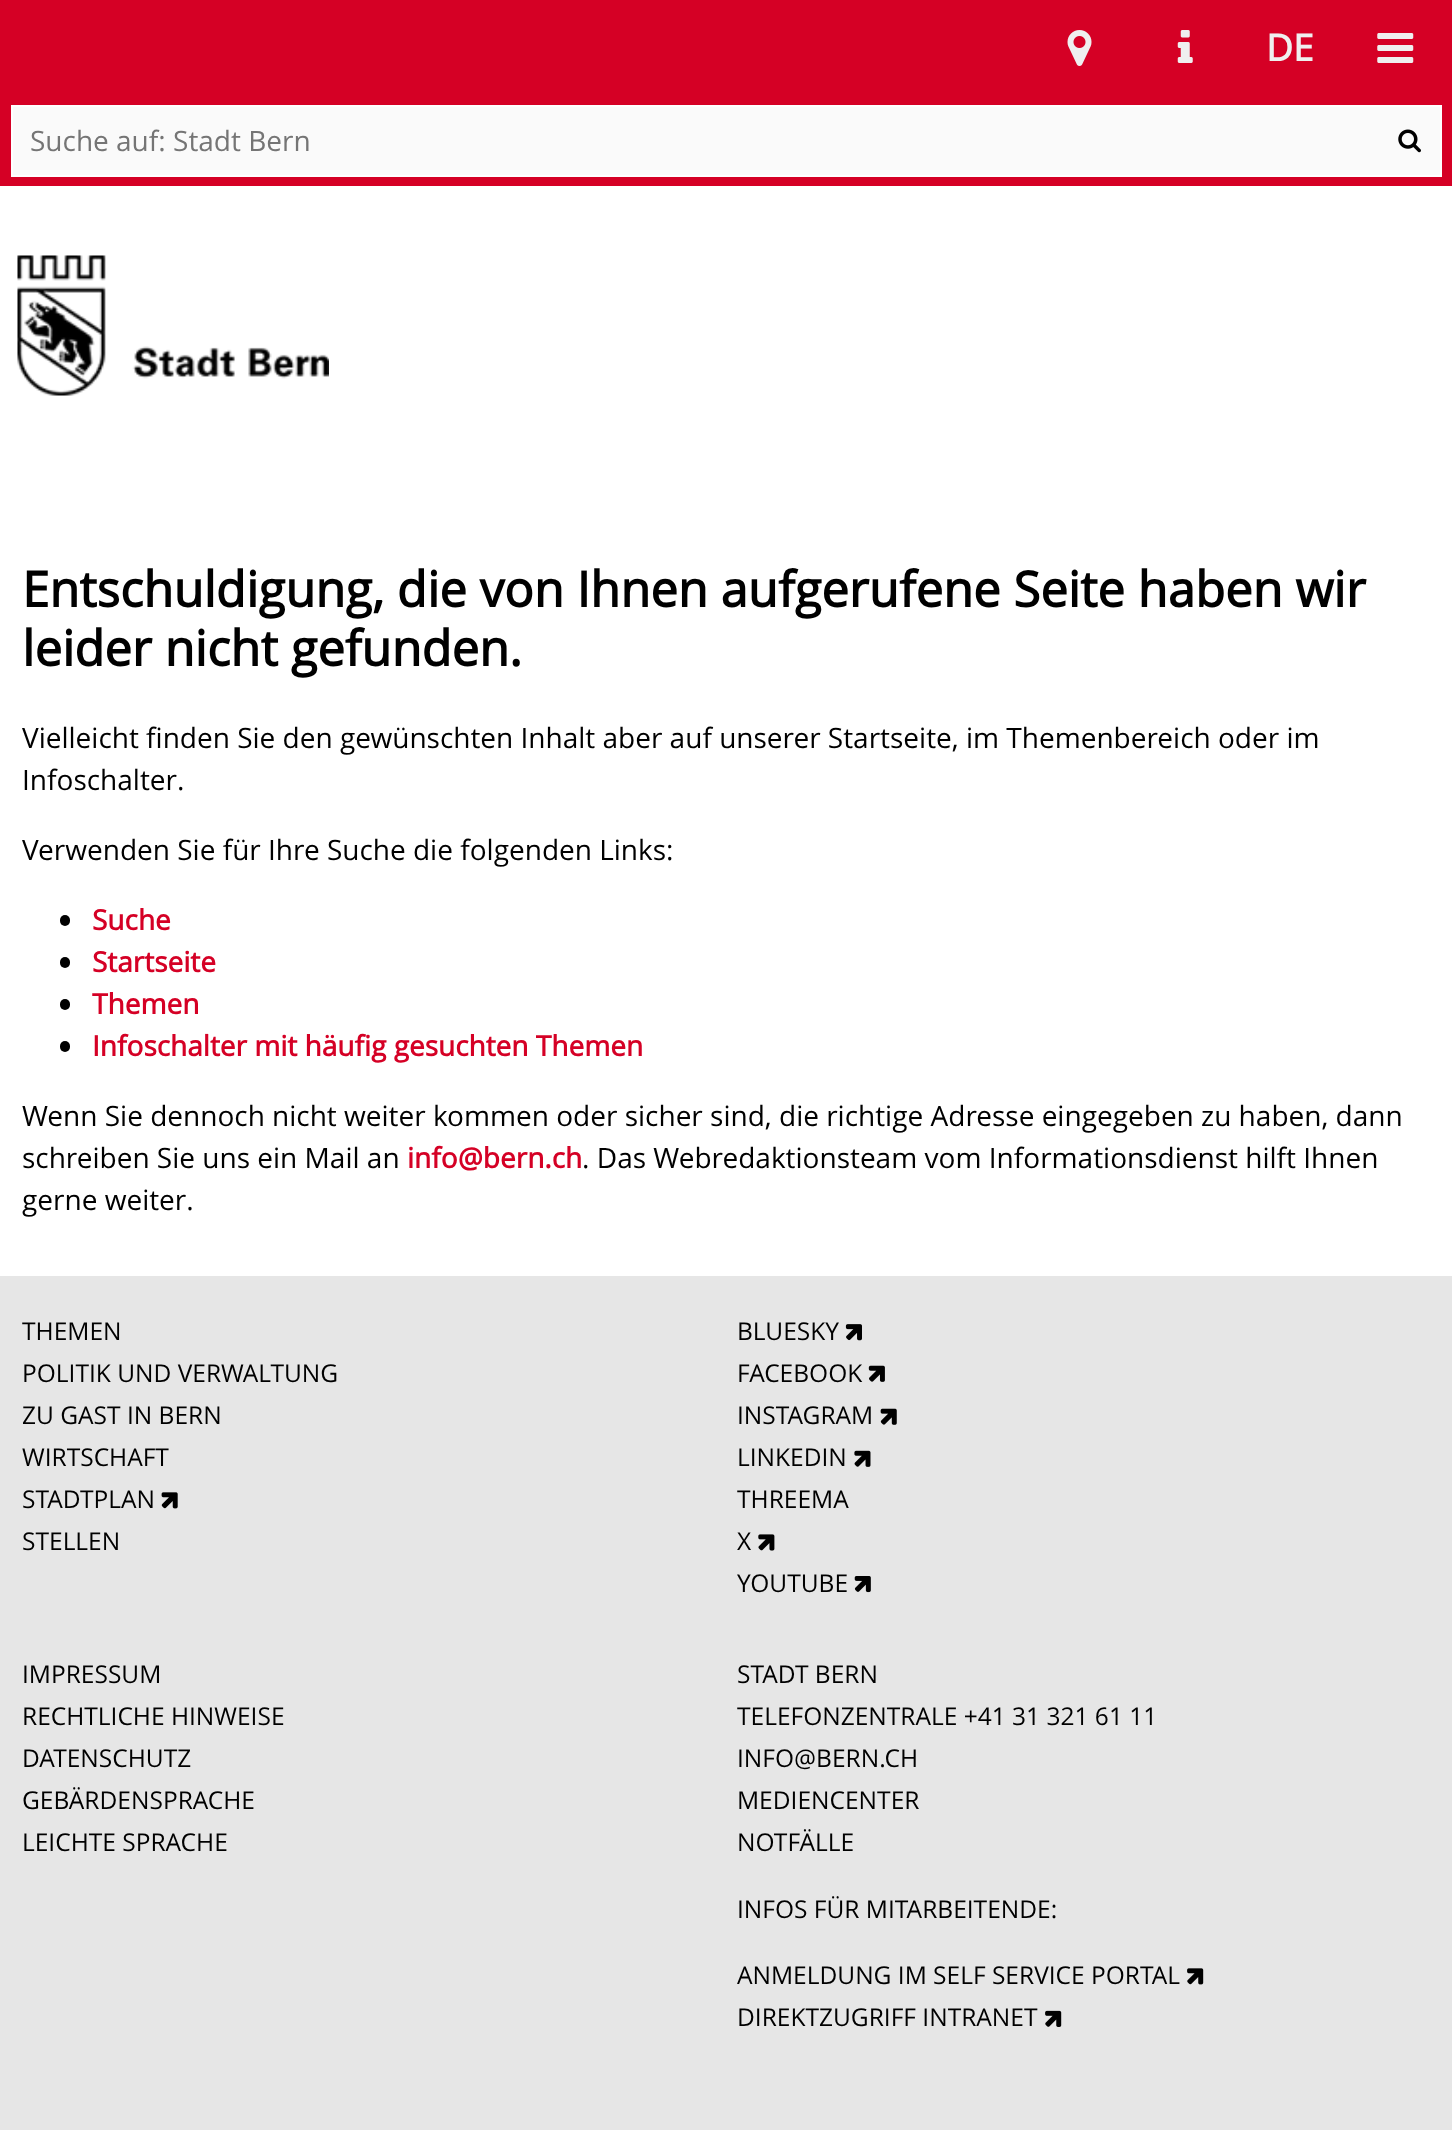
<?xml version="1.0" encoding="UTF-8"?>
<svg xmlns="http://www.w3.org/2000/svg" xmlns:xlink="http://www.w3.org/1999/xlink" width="1452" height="2136">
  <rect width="100%" height="100%" fill="#ffffff" />
  <rect width="1452" height="186" fill="#d50025" />
  <image x="1067" y="30" width="25" height="36" xlink:href="image1.png" />
  <image x="1177" y="30" width="16" height="33" xlink:href="image2.png" />
  <image x="1377" y="33" width="37" height="30" xlink:href="image3.png" />
  <rect x="12" y="106" width="1429" height="70" fill="#fafafa" stroke="#ffffff" stroke-width="2" />
  <image x="1398" y="129" width="23" height="24" xlink:href="image4.png" />
  <image x="17" y="255" width="312" height="141" xlink:href="image5.png" />
  <rect x="60" y="915" width="10" height="11" rx="5" fill="#000000" />
  <rect x="60" y="957" width="10" height="11" rx="5" fill="#000000" />
  <rect x="60" y="999" width="10" height="11" rx="5" fill="#000000" />
  <rect x="60" y="1041" width="10" height="11" rx="5" fill="#000000" />
  <rect y="1276" width="1452" height="854" fill="#e6e6e6" />
  <image x="161" y="1492" width="17" height="17" xlink:href="image6.png" />
  <image x="845" y="1324" width="17" height="17" xlink:href="image7.png" />
  <image x="868" y="1365" width="17" height="17" xlink:href="image8.png" />
  <image x="880" y="1408" width="17" height="17" xlink:href="image9.png" />
  <image x="854" y="1450" width="17" height="17" xlink:href="image10.png" />
  <image x="758" y="1534" width="17" height="17" xlink:href="image11.png" />
  <image x="854" y="1576" width="17" height="17" xlink:href="image12.png" />
  <image x="1187" y="1968" width="17" height="17" xlink:href="image13.png" />
  <image x="1045" y="2010" width="17" height="17" xlink:href="image14.png" />
  <text x="1266" y="61" style="font-family: Open Sans; font-size: 37px; font-weight: bold; fill: #efefef">DE</text>
  <text x="30" y="151" style="font-family: Open Sans; font-size: 28px; fill: #757575">Suche auf: Stadt Bern</text>
  <text x="22" y="607" style="font-family: Open Sans; font-size: 49px; font-weight: bold; fill: #000000">Entschuldigung, die von Ihnen aufgerufene Seite haben wir</text>
  <text x="22" y="666" style="font-family: Open Sans; font-size: 49px; font-weight: bold; fill: #000000">leider nicht gefunden.</text>
  <text x="22" y="748" style="font-family: Open Sans; font-size: 28px; fill: #000000">Vielleicht finden Sie den gewünschten Inhalt aber auf unserer Startseite, im Themenbereich oder im</text>
  <text x="22" y="790" style="font-family: Open Sans; font-size: 28px; fill: #000000">Infoschalter.</text>
  <text x="22" y="860" style="font-family: Open Sans; font-size: 28px; fill: #000000">Verwenden Sie für Ihre Suche die folgenden Links:</text>
  <text x="92" y="930" style="font-family: Open Sans; font-size: 28px; font-weight: bold; fill: #d50025">Suche</text>
  <text x="92" y="972" style="font-family: Open Sans; font-size: 28px; font-weight: bold; fill: #d50025">Startseite</text>
  <text x="92" y="1014" style="font-family: Open Sans; font-size: 28px; font-weight: bold; fill: #d50025">Themen</text>
  <text x="92" y="1056" style="font-family: Open Sans; font-size: 28px; font-weight: bold; fill: #d50025">Infoschalter mit häufig gesuchten Themen</text>
  <text x="22" y="1126" style="font-family: Open Sans; font-size: 28px; fill: #000000">Wenn Sie dennoch nicht weiter kommen oder sicher sind, die richtige Adresse eingegeben zu haben, dann</text>
  <text x="22" y="1168" style="font-family: Open Sans; font-size: 28px; fill: #000000">schreiben Sie uns ein Mail an</text>
  <text x="407" y="1168" style="font-family: Open Sans; font-size: 28px; font-weight: bold; fill: #d50025">info@bern.ch</text>
  <text x="582" y="1168" style="font-family: Open Sans; font-size: 28px; fill: #000000">. Das Webredaktionsteam vom Informationsdienst hilft Ihnen</text>
  <text x="22" y="1210" style="font-family: Open Sans; font-size: 28px; fill: #000000">gerne weiter.</text>
  <text x="22" y="1340" style="font-family: Open Sans; font-size: 24.5px; fill: #000000">THEMEN</text>
  <text x="22" y="1382" style="font-family: Open Sans; font-size: 24.5px; fill: #000000">POLITIK UND VERWALTUNG</text>
  <text x="22" y="1424" style="font-family: Open Sans; font-size: 24.5px; fill: #000000">ZU GAST IN BERN</text>
  <text x="22" y="1466" style="font-family: Open Sans; font-size: 24.5px; fill: #000000">WIRTSCHAFT</text>
  <text x="22" y="1508" style="font-family: Open Sans; font-size: 24.5px; fill: #000000">STADTPLAN</text>
  <text x="22" y="1550" style="font-family: Open Sans; font-size: 24.5px; fill: #000000">STELLEN</text>
  <text x="737" y="1340" style="font-family: Open Sans; font-size: 24.5px; fill: #000000">BLUESKY</text>
  <text x="737" y="1382" style="font-family: Open Sans; font-size: 24.5px; fill: #000000">FACEBOOK</text>
  <text x="737" y="1424" style="font-family: Open Sans; font-size: 24.5px; fill: #000000">INSTAGRAM</text>
  <text x="737" y="1466" style="font-family: Open Sans; font-size: 24.5px; fill: #000000">LINKEDIN</text>
  <text x="737" y="1508" style="font-family: Open Sans; font-size: 24.5px; fill: #000000">THREEMA</text>
  <text x="737" y="1550" style="font-family: Open Sans; font-size: 24.5px; fill: #000000">X</text>
  <text x="737" y="1592" style="font-family: Open Sans; font-size: 24.5px; fill: #000000">YOUTUBE</text>
  <text x="22" y="1683" style="font-family: Open Sans; font-size: 24.5px; fill: #000000">IMPRESSUM</text>
  <text x="22" y="1725" style="font-family: Open Sans; font-size: 24.5px; fill: #000000">RECHTLICHE HINWEISE</text>
  <text x="22" y="1767" style="font-family: Open Sans; font-size: 24.5px; fill: #000000">DATENSCHUTZ</text>
  <text x="22" y="1809" style="font-family: Open Sans; font-size: 24.5px; fill: #000000">GEBÄRDENSPRACHE</text>
  <text x="22" y="1851" style="font-family: Open Sans; font-size: 24.5px; fill: #000000">LEICHTE SPRACHE</text>
  <text x="737" y="1683" style="font-family: Open Sans; font-size: 24.5px; fill: #000000">STADT BERN</text>
  <text x="737" y="1725" style="font-family: Open Sans; font-size: 24.5px; fill: #000000">TELEFONZENTRALE +41 31 321 61 11</text>
  <text x="737" y="1767" style="font-family: Open Sans; font-size: 24.5px; fill: #000000">INFO@BERN.CH</text>
  <text x="737" y="1809" style="font-family: Open Sans; font-size: 24.5px; fill: #000000">MEDIENCENTER</text>
  <text x="737" y="1851" style="font-family: Open Sans; font-size: 24.5px; fill: #000000">NOTFÄLLE</text>
  <text x="737" y="1918" style="font-family: Open Sans; font-size: 24.5px; fill: #000000">INFOS FÜR MITARBEITENDE:</text>
  <text x="737" y="1984" style="font-family: Open Sans; font-size: 24.5px; fill: #000000">ANMELDUNG IM SELF SERVICE PORTAL</text>
  <text x="737" y="2026" style="font-family: Open Sans; font-size: 24.5px; fill: #000000">DIREKTZUGRIFF INTRANET</text>
</svg>
